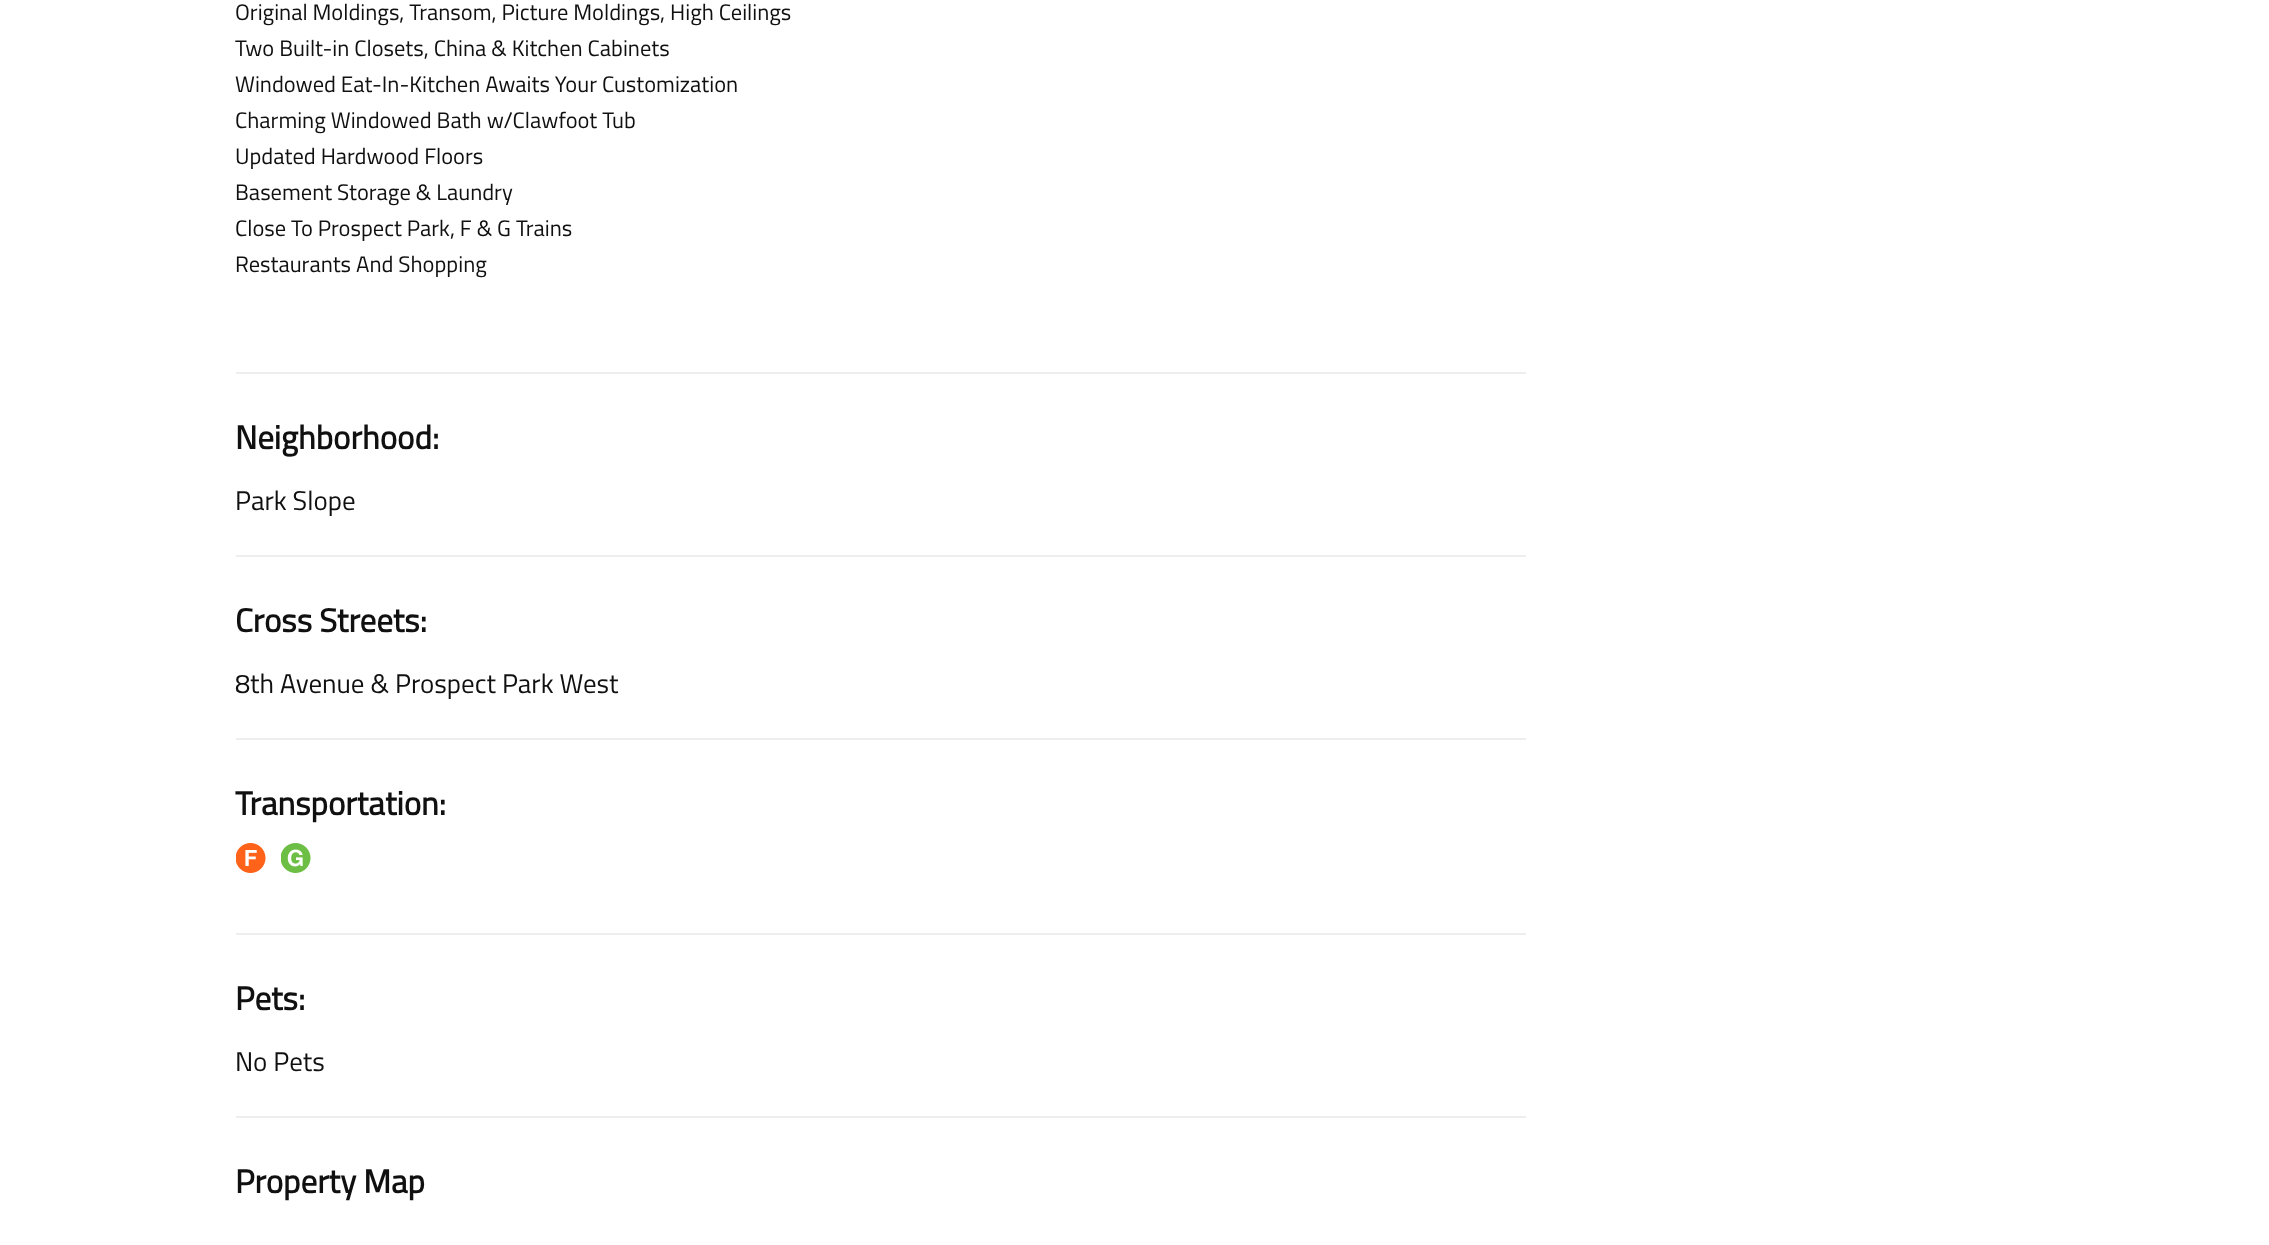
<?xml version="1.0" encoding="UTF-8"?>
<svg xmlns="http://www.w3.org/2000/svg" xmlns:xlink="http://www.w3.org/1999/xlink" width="2269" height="1245">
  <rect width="100%" height="100%" fill="#ffffff" />
  <rect x="236" y="372" width="1290" height="2" fill="#eeeeee" />
  <rect x="236" y="555" width="1290" height="2" fill="#eeeeee" />
  <rect x="236" y="738" width="1290" height="2" fill="#eeeeee" />
  <image x="236" y="843" width="30" height="30" xlink:href="image1.png" />
  <image x="281" y="843" width="30" height="30" xlink:href="image2.png" />
  <rect x="236" y="933" width="1290" height="2" fill="#eeeeee" />
  <rect x="236" y="1116" width="1290" height="2" fill="#eeeeee" />
  <text x="235" y="20" style="font-family: Titillium Web; font-size: 22.5px; fill: #101010">Original Moldings, Transom, Picture Moldings, High Ceilings</text>
  <text x="235" y="56" style="font-family: Titillium Web; font-size: 22.5px; fill: #101010">Two Built-in Closets, China &amp; Kitchen Cabinets</text>
  <text x="235" y="92" style="font-family: Titillium Web; font-size: 22.5px; fill: #101010">Windowed Eat-In-Kitchen Awaits Your Customization</text>
  <text x="235" y="128" style="font-family: Titillium Web; font-size: 22.5px; fill: #101010">Charming Windowed Bath w/Clawfoot Tub</text>
  <text x="235" y="164" style="font-family: Titillium Web; font-size: 22.5px; fill: #101010">Updated Hardwood Floors</text>
  <text x="235" y="200" style="font-family: Titillium Web; font-size: 22.5px; fill: #101010">Basement Storage &amp; Laundry</text>
  <text x="235" y="236" style="font-family: Titillium Web; font-size: 22.5px; fill: #101010">Close To Prospect Park, F &amp; G Trains</text>
  <text x="235" y="272" style="font-family: Titillium Web; font-size: 22.5px; fill: #101010">Restaurants And Shopping</text>
  <text x="235" y="449" style="font-family: Titillium Web; font-size: 33px; font-weight: bold; fill: #101010">Neighborhood:</text>
  <text x="235" y="510" style="font-family: Titillium Web; font-size: 27px; fill: #101010">Park Slope</text>
  <text x="235" y="632" style="font-family: Titillium Web; font-size: 33px; font-weight: bold; fill: #101010">Cross Streets:</text>
  <text x="235" y="693" style="font-family: Titillium Web; font-size: 27px; fill: #101010">8th Avenue &amp; Prospect Park West</text>
  <text x="235" y="815" style="font-family: Titillium Web; font-size: 33px; font-weight: bold; fill: #101010">Transportation:</text>
  <text x="235" y="1010" style="font-family: Titillium Web; font-size: 33px; font-weight: bold; fill: #101010">Pets:</text>
  <text x="235" y="1071" style="font-family: Titillium Web; font-size: 27px; fill: #101010">No Pets</text>
  <text x="235" y="1193" style="font-family: Titillium Web; font-size: 33px; font-weight: bold; fill: #101010">Property Map</text>
</svg>
